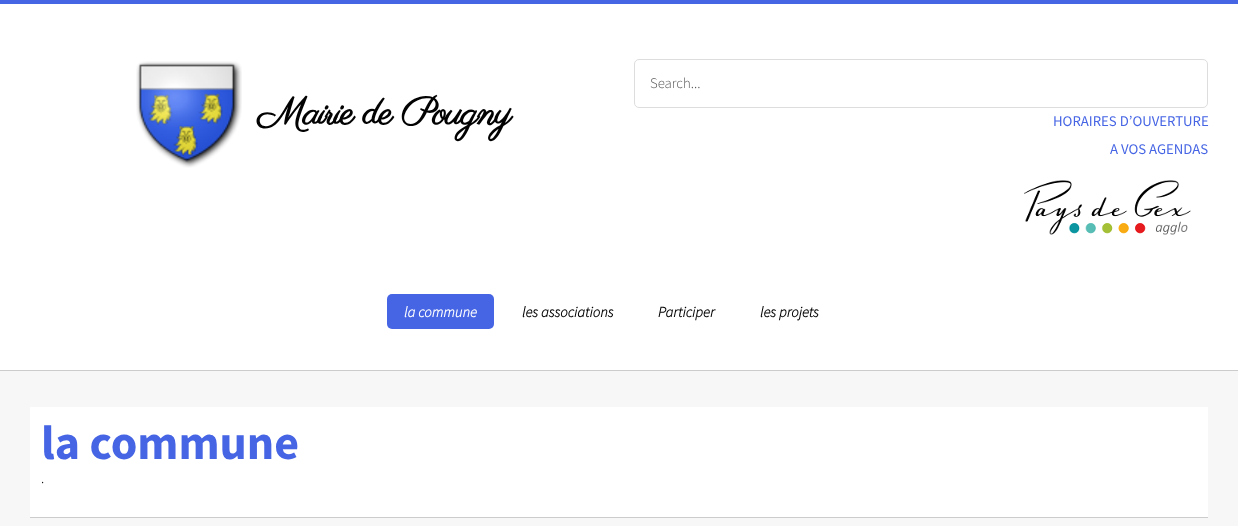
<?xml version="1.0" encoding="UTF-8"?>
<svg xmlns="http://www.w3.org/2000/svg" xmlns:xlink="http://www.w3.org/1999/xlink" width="1238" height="526">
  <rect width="100%" height="100%" fill="#f7f7f7" />
  <rect y="4" width="1238" height="366" fill="#ffffff" />
  <rect y="370" width="1238" height="1" fill="#cccccc" />
  <rect width="1238" height="4" fill="#4665e4" />
  <image x="136" y="61" width="106" height="107" xlink:href="image1.png" />
  <rect x="634.5" y="59.5" width="573" height="48" rx="4.5" fill="none" stroke="#dddddd" />
  <image x="1024" y="180" width="167" height="55" xlink:href="image2.png" />
  <rect x="387" y="294" width="107" height="35" rx="5" fill="#4665e4" />
  <rect x="30" y="407" width="1178" height="110" fill="#ffffff" />
  <rect x="30" y="517" width="1178" height="1" fill="#cccccc" />
  <text x="258" y="124" style="font-family: Parisienne; font-size: 38.5px; font-weight: bold; letter-spacing: -1.3px; fill: #020202">Mairie de Pougny</text>
  <text x="650" y="88" style="font-family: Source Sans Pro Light; font-size: 14.75px; font-weight: 300; fill: #555555">Search...</text>
  <text x="1053" y="126" style="font-family: Source Sans Pro; font-size: 14.75px; fill: #4665e4">HORAIRES D’OUVERTURE</text>
  <text x="1110" y="154" style="font-family: Source Sans Pro; font-size: 14.75px; fill: #4665e4">A VOS AGENDAS</text>
  <text x="404" y="317" style="font-family: Source Sans Pro Light; font-size: 14.75px; font-weight: bold; font-style: italic; fill: #ffffff">la commune</text>
  <text x="522" y="317" style="font-family: Source Sans Pro Light; font-size: 14.75px; font-weight: bold; font-style: italic; fill: #020202">les associations</text>
  <text x="658" y="317" style="font-family: Source Sans Pro Light; font-size: 14.75px; font-weight: bold; font-style: italic; fill: #020202">Participer</text>
  <text x="760" y="317" style="font-family: Source Sans Pro Light; font-size: 14.75px; font-weight: bold; font-style: italic; fill: #020202">les projets</text>
  <text x="41" y="459" style="font-family: Source Sans Pro; font-size: 48px; font-weight: bold; fill: #4665e4">la commune</text>
  <text x="41" y="483" style="font-family: Source Sans Pro Light; font-size: 14.75px; font-weight: 300; fill: #020202">.</text>
</svg>
